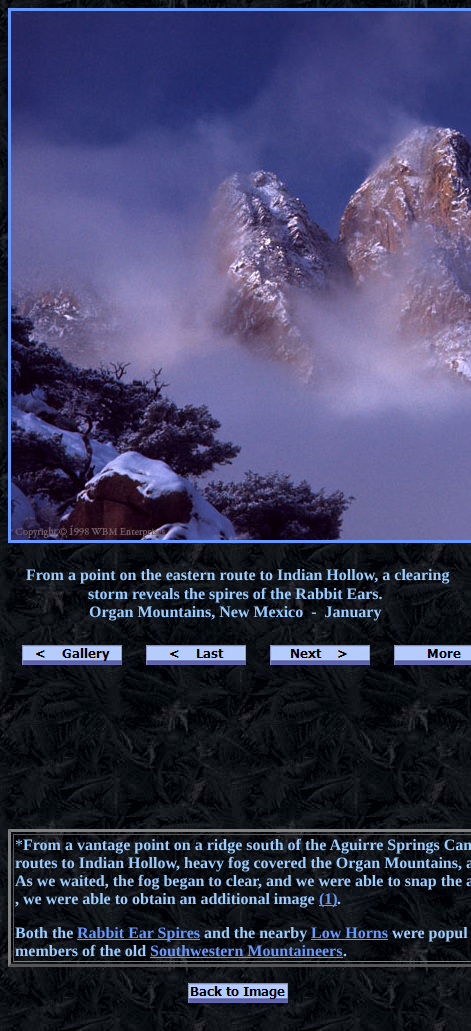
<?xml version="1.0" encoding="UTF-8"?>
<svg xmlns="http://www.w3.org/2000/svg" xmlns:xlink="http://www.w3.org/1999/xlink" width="471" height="1031">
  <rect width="100%" height="100%" fill="#ffffff" />
  <image x="0" y="0" width="471" height="1031" xlink:href="image1.png" />
  <rect x="9.5" y="9.5" width="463" height="532" fill="none" stroke="#6699ff" stroke-width="3" />
  <image x="11" y="11" width="460" height="529" xlink:href="image2.png" />
  <image x="22" y="645" width="100" height="20" xlink:href="image3.png" />
  <image x="146" y="645" width="100" height="20" xlink:href="image4.png" />
  <image x="270" y="645" width="100" height="20" xlink:href="image5.png" />
  <image x="394" y="645" width="77" height="20" xlink:href="image6.png" />
  <path d="M 8 829 h 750 l -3 3 h -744 z" fill="#808080" />
  <path d="M 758 967 h -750 l 3 -3 h 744 z" fill="#555555" />
  <path d="M 8 967 v -138 l 3 3 v 132 z" fill="#808080" />
  <rect x="13" y="834" width="458" height="1" fill="#555555" />
  <rect x="13" y="961" width="458" height="1" fill="#808080" />
  <rect x="13" y="834" width="1" height="128" fill="#555555" />
  <rect x="319" y="905" width="18" height="1" fill="#6699ff" />
  <rect x="77" y="939" width="123" height="1" fill="#6699ff" />
  <rect x="311" y="939" width="77" height="1" fill="#6699ff" />
  <rect x="150" y="957" width="193" height="1" fill="#6699ff" />
  <image x="188" y="983" width="100" height="20" xlink:href="image7.png" />
  <text x="26" y="580" style="font-family: Liberation Serif; font-size: 16px; font-weight: bold; fill: #99ccff">From a point on the eastern route to Indian Hollow, a clearing</text>
  <text x="88" y="599" style="font-family: Liberation Serif; font-size: 16px; font-weight: bold; fill: #99ccff">storm reveals the spires of the Rabbit Ears.</text>
  <text x="89" y="617" style="font-family: Liberation Serif; font-size: 16px; font-weight: bold; fill: #99ccff" xml:space="preserve">Organ Mountains, New Mexico  -  January</text>
  <text x="15" y="850" style="font-family: Liberation Serif; font-size: 16px; fill: #99ccff">*</text>
  <text x="23" y="850" style="font-family: Liberation Serif; font-size: 16px; font-weight: bold; fill: #99ccff">From a vantage point on a ridge south of the Aguirre Springs Cam</text>
  <text x="15" y="868" style="font-family: Liberation Serif; font-size: 16px; font-weight: bold; fill: #99ccff">routes to Indian Hollow, heavy fog covered the Organ Mountains, a</text>
  <text x="15" y="886" style="font-family: Liberation Serif; font-size: 16px; font-weight: bold; fill: #99ccff">As we waited, the fog began to clear, and we were able to snap the a</text>
  <text x="15" y="904" style="font-family: Liberation Serif; font-size: 16px; font-weight: bold; fill: #99ccff">, we were able to obtain an additional image</text>
  <text x="319" y="904" style="font-family: Liberation Serif; font-size: 16px; font-weight: bold; fill: #6699ff">(1)</text>
  <text x="337" y="904" style="font-family: Liberation Serif; font-size: 16px; font-weight: bold; fill: #99ccff">.</text>
  <text x="15" y="938" style="font-family: Liberation Serif; font-size: 16px; font-weight: bold; fill: #99ccff">Both the</text>
  <text x="77" y="938" style="font-family: Liberation Serif; font-size: 16px; font-weight: bold; fill: #6699ff">Rabbit Ear Spires</text>
  <text x="204" y="938" style="font-family: Liberation Serif; font-size: 16px; font-weight: bold; fill: #99ccff">and the nearby</text>
  <text x="311" y="938" style="font-family: Liberation Serif; font-size: 16px; font-weight: bold; fill: #6699ff">Low Horns</text>
  <text x="392" y="938" style="font-family: Liberation Serif; font-size: 16px; font-weight: bold; fill: #99ccff">were popul</text>
  <text x="15" y="956" style="font-family: Liberation Serif; font-size: 16px; font-weight: bold; fill: #99ccff">members of the old</text>
  <text x="150" y="956" style="font-family: Liberation Serif; font-size: 16px; font-weight: bold; fill: #6699ff">Southwestern Mountaineers</text>
  <text x="343" y="956" style="font-family: Liberation Serif; font-size: 16px; font-weight: bold; fill: #99ccff">.</text>
</svg>
